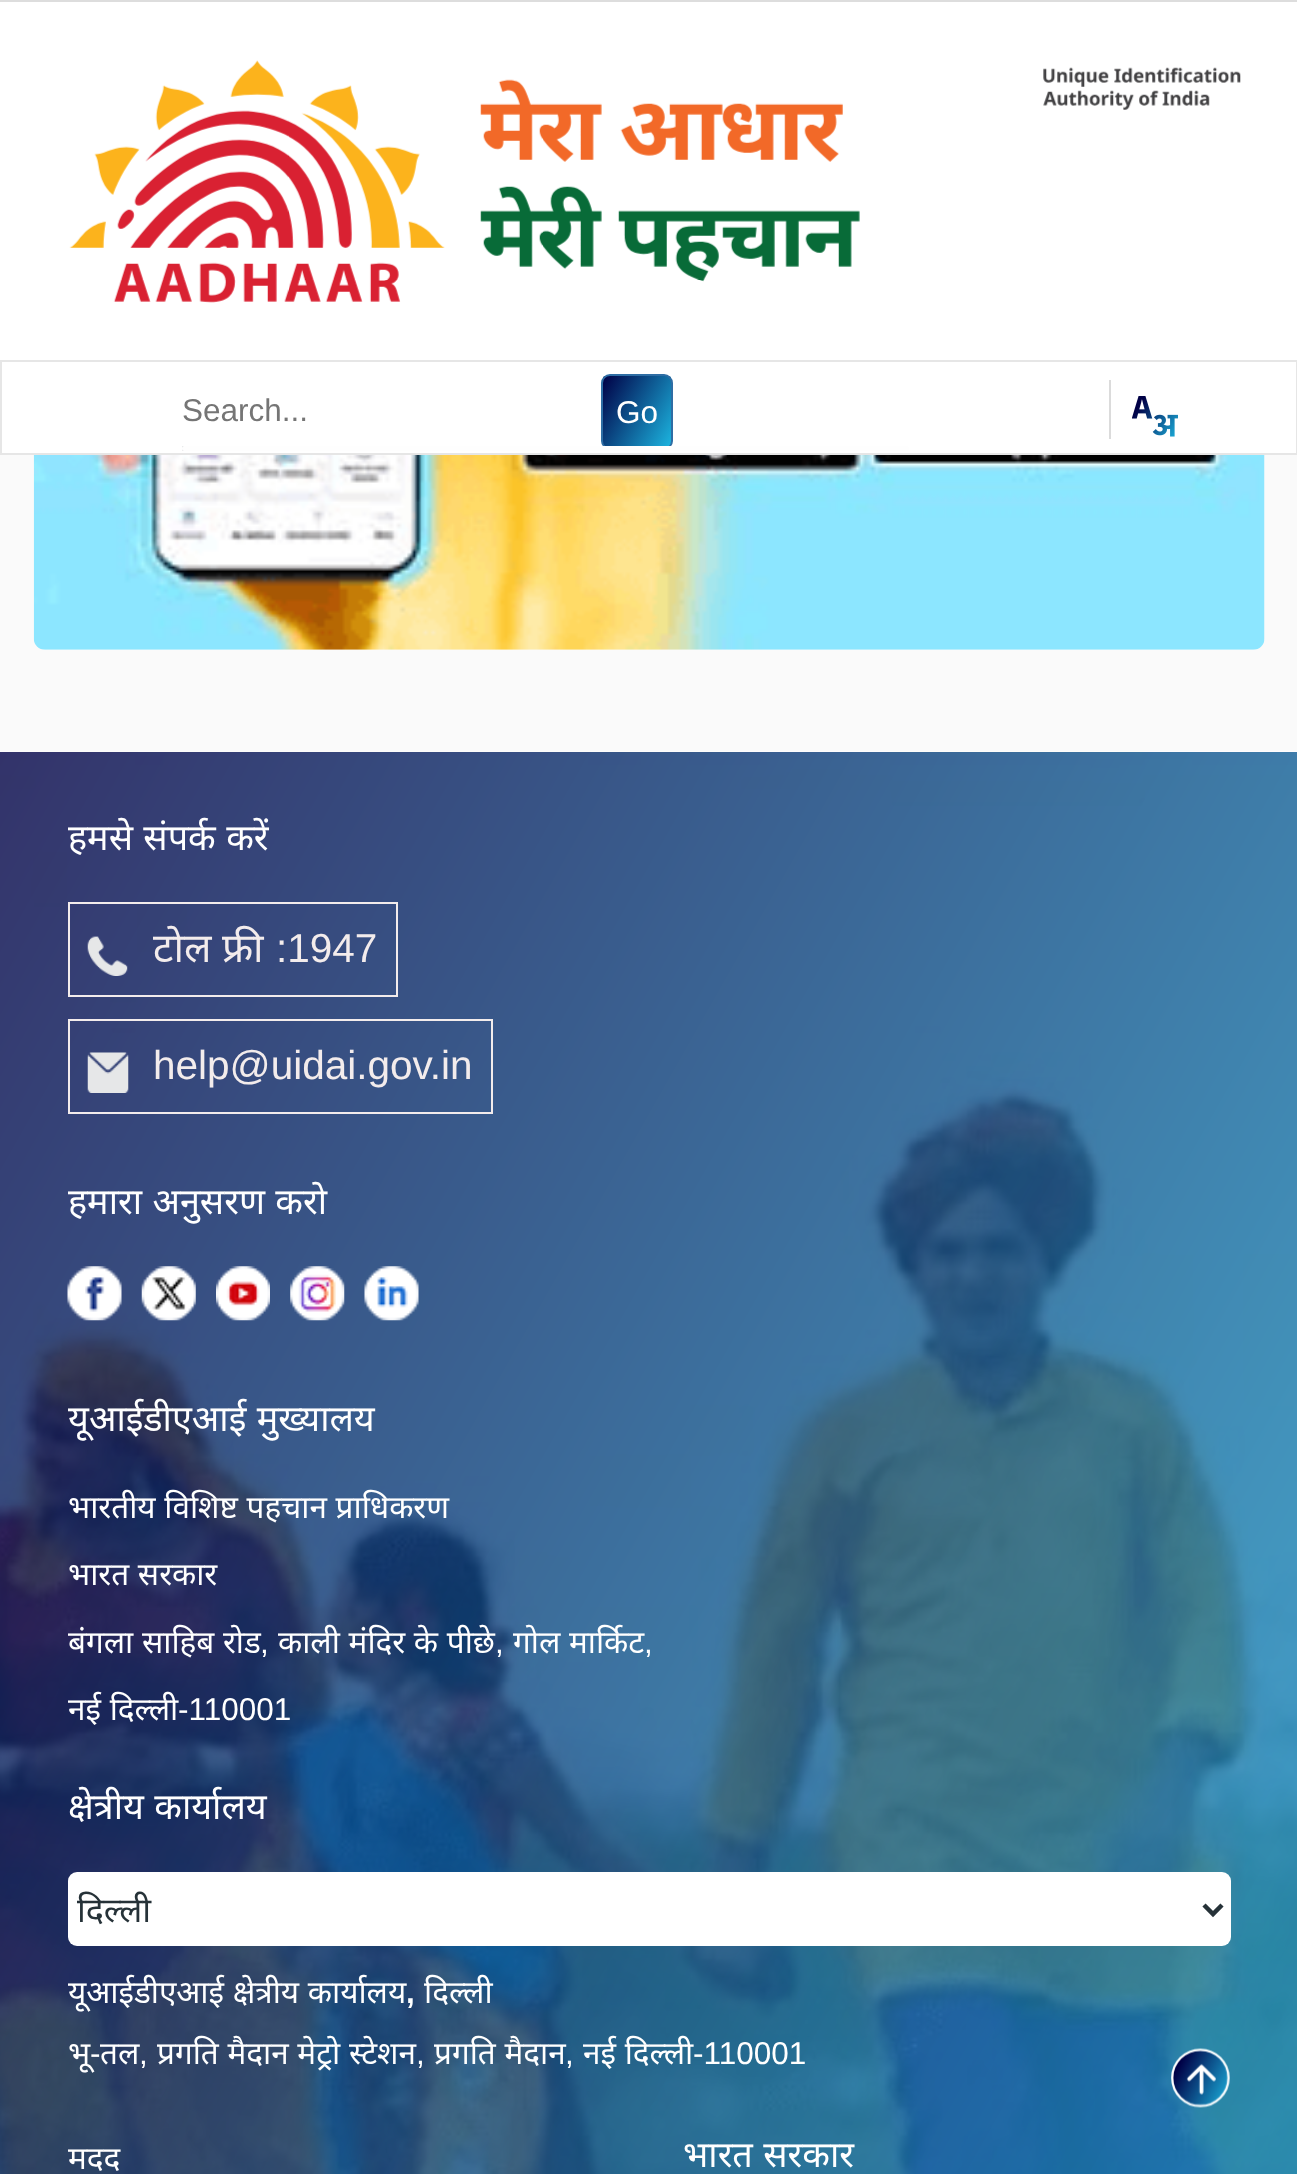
<?xml version="1.0" encoding="UTF-8"?>
<svg xmlns="http://www.w3.org/2000/svg" xmlns:xlink="http://www.w3.org/1999/xlink" width="1297" height="2174">
  <defs>
    <clipPath id="clip1"><rect x="601" y="374" width="72" height="76" rx="9" /></clipPath>
    <linearGradient id="g1" gradientUnits="userSpaceOnUse" x1="596" y1="389" x2="678" y2="435"><stop offset="0" stop-color="#000046" /><stop offset="1" stop-color="#1cb5e0" /></linearGradient>
    <clipPath id="clip2"><rect x="77" y="1888" width="1118" height="43" /></clipPath>
  </defs>
  <rect width="100%" height="100%" fill="#fafafa" />
  <rect y="2" width="1297" height="451" fill="#ffffff" />
  <rect width="1297" height="2" fill="#dddddd" />
  <image x="69" y="60" width="791" height="243" xlink:href="image1.png" />
  <image x="1043" y="67" width="198" height="43" xlink:href="image2.png" />
  <rect x="1" y="361" width="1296" height="93" fill="none" stroke="#e6e6e6" stroke-width="2" />
  <rect x="182" y="446" width="3" height="5" fill="#e6e7e8" />
  <g clip-path="url(#clip1)">
    <rect x="603" y="376" width="68" height="70" fill="url(#g1)" />
  </g>
  <rect x="602" y="375" width="70" height="74" rx="8" fill="none" stroke="#2e6da4" stroke-width="2" />
  <rect x="182" y="446" width="727" height="5" rx="2.5" fill="#fefefe" />
  <rect x="1109" y="380" width="2" height="59" fill="#dbdbdb" />
  <image x="1132" y="396" width="46" height="41" xlink:href="image3.png" />
  <image x="33" y="455" width="1232" height="195" xlink:href="image4.png" />
  <image x="0" y="751" width="1297" height="1423" xlink:href="image5.png" />
  <rect x="69" y="903" width="328" height="93" fill="none" stroke="#f3ecec" stroke-width="2" />
  <image x="87" y="936" width="41" height="40" xlink:href="image6.png" />
  <rect x="69" y="1020" width="423" height="93" fill="none" stroke="#f3ecec" stroke-width="2" />
  <image x="87" y="1052" width="42" height="41" xlink:href="image7.png" />
  <image x="67" y="1266" width="55" height="55" xlink:href="image8.png" />
  <image x="141" y="1266" width="55" height="55" xlink:href="image9.png" />
  <image x="216" y="1266" width="54" height="55" xlink:href="image10.png" />
  <image x="290" y="1266" width="55" height="55" xlink:href="image11.png" />
  <image x="364" y="1266" width="55" height="55" xlink:href="image12.png" />
  <rect x="68" y="1872" width="1163" height="74" rx="9" fill="#ffffff" />
  <path d="M 1204 1905 l 9 9 l 9 -9" fill="none" stroke="#263238" stroke-width="4.5" />
  <image x="1171" y="2048" width="59" height="60" xlink:href="image13.png" />
  <text x="182" y="421" style="font-family: Liberation Sans; font-size: 31.5px; fill: #757575">Search...</text>
  <text x="616" y="423" style="font-family: Liberation Sans; font-size: 31.5px; fill: #ffffff">Go</text>
  <text x="68" y="850" word-spacing="1" style="font-family: Noto Sans; font-size: 36px; fill: #ffffff">हमसे संपर्क करें</text>
  <text x="153" y="962" style="font-family: Noto Sans; font-size: 40.5px; fill: #f3ecec">टोल फ्री</text>
  <text x="276" y="962" style="font-family: Liberation Sans; font-size: 40.5px; fill: #f3ecec">:1947</text>
  <text x="153" y="1079" style="font-family: Liberation Sans; font-size: 40.5px; fill: #f3ecec">help@uidai.gov.in</text>
  <text x="68" y="1214" word-spacing="1" style="font-family: Noto Sans; font-size: 36px; fill: #ffffff">हमारा अनुसरण करो</text>
  <text x="68" y="1431" word-spacing="1" style="font-family: Noto Sans; font-size: 36px; fill: #ffffff">यूआईडीएआई मुख्यालय</text>
  <text x="68" y="1518" word-spacing="0.5" style="font-family: Noto Sans; font-size: 31.5px; fill: #ffffff">भारतीय विशिष्ट पहचान प्राधिकरण</text>
  <text x="68" y="1585" word-spacing="0.5" style="font-family: Noto Sans; font-size: 31.5px; fill: #ffffff">भारत सरकार</text>
  <text x="68" y="1653" word-spacing="0.5" style="font-family: Noto Sans; font-size: 31.5px; fill: #ffffff">बंगला साहिब रोड</text>
  <text x="260" y="1653" style="font-family: Liberation Sans; font-size: 31.5px; fill: #ffffff">,</text>
  <text x="278" y="1653" word-spacing="0.5" style="font-family: Noto Sans; font-size: 31.5px; fill: #ffffff">काली मंदिर के पीछे</text>
  <text x="495" y="1653" style="font-family: Liberation Sans; font-size: 31.5px; fill: #ffffff">,</text>
  <text x="513" y="1653" word-spacing="0.5" style="font-family: Noto Sans; font-size: 31.5px; fill: #ffffff">गोल मार्किट</text>
  <text x="644" y="1653" style="font-family: Liberation Sans; font-size: 31.5px; fill: #ffffff">,</text>
  <text x="68" y="1720" word-spacing="0.5" style="font-family: Noto Sans; font-size: 31.5px; fill: #ffffff">नई दिल्ली</text>
  <text x="178" y="1720" style="font-family: Liberation Sans; font-size: 31.5px; fill: #ffffff">-110001</text>
  <text x="68" y="1819" word-spacing="1" style="font-family: Noto Sans; font-size: 36px; fill: #ffffff">क्षेत्रीय कार्यालय</text>
  <g clip-path="url(#clip2)">
    <text x="77" y="1922" style="font-family: Noto Sans; font-size: 34px; fill: #263238">दिल्ली</text>
  </g>
  <text x="68" y="2003" word-spacing="0.5" style="font-family: Noto Sans; font-size: 31.5px; fill: #ffffff">यूआईडीएआई क्षेत्रीय कार्यालय</text>
  <text x="406" y="2003" style="font-family: Liberation Sans; font-size: 31.5px; font-weight: bold; fill: #ffffff">,</text>
  <text x="424" y="2003" style="font-family: Noto Sans; font-size: 31.5px; fill: #ffffff">दिल्ली</text>
  <text x="68" y="2064" style="font-family: Noto Sans; font-size: 31.5px; fill: #ffffff">भू</text>
  <text x="90" y="2064" style="font-family: Liberation Sans; font-size: 31.5px; fill: #ffffff">-</text>
  <text x="100" y="2064" style="font-family: Noto Sans; font-size: 31.5px; fill: #ffffff">तल</text>
  <text x="157" y="2064" word-spacing="0.5" style="font-family: Noto Sans; font-size: 31.5px; fill: #ffffff">प्रगति मैदान मेट्रो स्टेशन</text>
  <text x="434" y="2064" word-spacing="0.5" style="font-family: Noto Sans; font-size: 31.5px; fill: #ffffff">प्रगति मैदान</text>
  <text x="583" y="2064" word-spacing="0.5" style="font-family: Noto Sans; font-size: 31.5px; fill: #ffffff">नई दिल्ली</text>
  <text x="693" y="2064" style="font-family: Liberation Sans; font-size: 31.5px; fill: #ffffff">-110001</text>
  <text x="139" y="2064" style="font-family: Liberation Sans; font-size: 31.5px; fill: #ffffff">,</text>
  <text x="416" y="2064" style="font-family: Liberation Sans; font-size: 31.5px; fill: #ffffff">,</text>
  <text x="565" y="2064" style="font-family: Liberation Sans; font-size: 31.5px; fill: #ffffff">,</text>
  <text x="68" y="2169" style="font-family: Noto Sans; font-size: 31.5px; fill: #ffffff">मदद</text>
  <text x="683" y="2167" word-spacing="1" style="font-family: Noto Sans; font-size: 36px; fill: #ffffff">भारत सरकार</text>
</svg>
